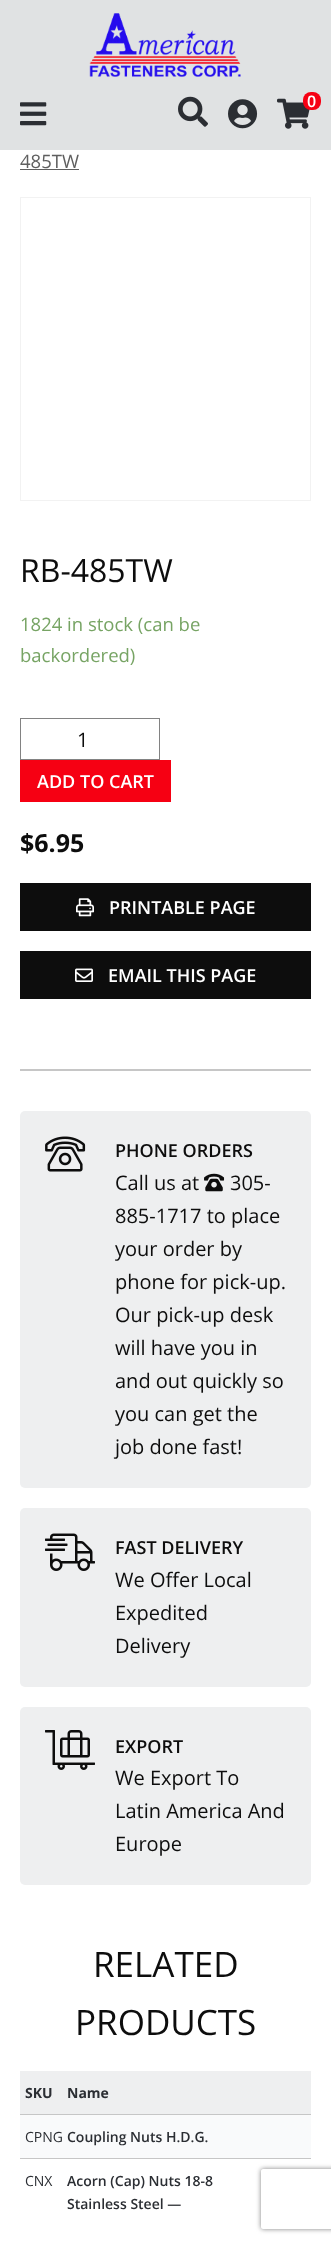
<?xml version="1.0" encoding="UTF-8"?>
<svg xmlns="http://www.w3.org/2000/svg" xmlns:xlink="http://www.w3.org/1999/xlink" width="331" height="2243">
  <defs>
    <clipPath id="clip1"><path d="M 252 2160 h 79 v 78 h -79 z m 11 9 h 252 c 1 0 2 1 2 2 v 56 c 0 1 -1 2 -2 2 h -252 c -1 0 -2 -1 -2 -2 v -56 c 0 -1 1 -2 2 -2 z" clip-rule="evenodd" /></clipPath>
  </defs>
  <rect width="100%" height="100%" fill="#ffffff" />
  <rect width="331" height="150" fill="#e0e2e3" />
  <image x="89" y="13" width="152" height="64" xlink:href="image1.png" />
  <image x="20" y="102" width="27" height="24" xlink:href="image2.png" />
  <image x="178" y="96" width="30" height="31" xlink:href="image3.png" />
  <image x="228" y="99" width="30" height="30" xlink:href="image4.png" />
  <image x="277" y="98" width="33" height="31" xlink:href="image5.png" />
  <rect x="303" y="92" width="18" height="18" rx="8" fill="#f60013" />
  <rect x="20" y="169" width="59" height="1" fill="#5f5f5f" />
  <rect x="20" y="1069" width="291" height="2" fill="#c6c6c6" />
  <rect x="20.5" y="197.5" width="290" height="303" fill="none" stroke="#f2f2f2" />
  <rect x="20.5" y="718.5" width="139" height="41" fill="none" stroke="#828282" />
  <rect x="20" y="760" width="151" height="42" fill="#f60013" />
  <rect x="20" y="883" width="291" height="48" fill="#0d0d0d" />
  <image x="76" y="898" width="18" height="19" xlink:href="image6.png" />
  <rect x="20" y="951" width="291" height="48" fill="#0d0d0d" />
  <image x="75" y="968" width="18" height="14" xlink:href="image7.png" />
  <rect x="20" y="1111" width="291" height="377" rx="5" fill="#eeeff0" />
  <image x="45" y="1136" width="41" height="36" xlink:href="image8.png" />
  <image x="204" y="1173" width="21" height="19" xlink:href="image9.png" />
  <rect x="20" y="1508" width="291" height="179" rx="5" fill="#eeeff0" />
  <image x="45" y="1533" width="50" height="38" xlink:href="image10.png" />
  <rect x="20" y="1707" width="291" height="178" rx="5" fill="#eeeff0" />
  <image x="45" y="1730" width="50" height="40" xlink:href="image11.png" />
  <rect x="20" y="2071" width="291" height="43" fill="#eeeff0" />
  <rect x="20" y="2114" width="291" height="1" fill="#c6c6c6" />
  <rect x="20" y="2115" width="291" height="43" fill="#f9fafb" />
  <rect x="20" y="2158" width="291" height="1" fill="#c6c6c6" />
  <g clip-path="url(#clip1)">
    <rect x="261" y="2169" width="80" height="60" rx="2" fill="#808080" filter="blur(2.5px)" />
  </g>
  <text x="307" y="107" style="font-family: Open Sans; font-size: 16px; font-weight: 600; fill: #ffffff">0</text>
  <text x="20" y="168" style="font-family: Open Sans; font-size: 18.5px; fill: #5f5f5f">485TW</text>
  <text x="20" y="582" style="font-family: Open Sans; font-size: 32px; fill: #0d0d0d">RB-485TW</text>
  <text x="20" y="631" style="font-family: Open Sans; font-size: 18.5px; fill: #77a464">1824 in stock (can be</text>
  <text x="20" y="662" style="font-family: Open Sans; font-size: 18.5px; fill: #77a464">backordered)</text>
  <text x="77" y="747" style="font-family: Open Sans; font-size: 20px; fill: #0d0d0d">1</text>
  <text x="37" y="788" style="font-family: Open Sans; font-size: 18px; font-weight: 600; fill: #ffffff">ADD TO CART</text>
  <text x="20" y="852" style="font-family: Open Sans; font-size: 25px; font-weight: bold; fill: #0d0d0d">$6.95</text>
  <text x="109" y="914" style="font-family: Open Sans; font-size: 18px; font-weight: 600; fill: #ffffff">PRINTABLE PAGE</text>
  <text x="108" y="982" style="font-family: Open Sans; font-size: 18px; font-weight: 600; fill: #ffffff">EMAIL THIS PAGE</text>
  <text x="115" y="1157" style="font-family: Open Sans; font-size: 18px; font-weight: 600; fill: #0d0d0d">PHONE ORDERS</text>
  <text x="115" y="1190" style="font-family: Open Sans; font-size: 20px; fill: #0d0d0d">Call us at</text>
  <text x="230" y="1190" style="font-family: Open Sans; font-size: 20px; fill: #0d0d0d">305-</text>
  <text x="115" y="1223" style="font-family: Open Sans; font-size: 20px; fill: #0d0d0d">885-1717 to place</text>
  <text x="115" y="1256" style="font-family: Open Sans; font-size: 20px; fill: #0d0d0d">your order by</text>
  <text x="115" y="1289" style="font-family: Open Sans; font-size: 20px; fill: #0d0d0d">phone for pick-up.</text>
  <text x="115" y="1322" style="font-family: Open Sans; font-size: 20px; fill: #0d0d0d">Our pick-up desk</text>
  <text x="115" y="1355" style="font-family: Open Sans; font-size: 20px; fill: #0d0d0d">will have you in</text>
  <text x="115" y="1388" style="font-family: Open Sans; font-size: 20px; fill: #0d0d0d">and out quickly so</text>
  <text x="115" y="1421" style="font-family: Open Sans; font-size: 20px; fill: #0d0d0d">you can get the</text>
  <text x="115" y="1454" style="font-family: Open Sans; font-size: 20px; fill: #0d0d0d">job done fast!</text>
  <text x="115" y="1554" style="font-family: Open Sans; font-size: 18px; font-weight: 600; fill: #0d0d0d">FAST DELIVERY</text>
  <text x="115" y="1587" style="font-family: Open Sans; font-size: 20px; fill: #0d0d0d">We Offer Local</text>
  <text x="115" y="1620" style="font-family: Open Sans; font-size: 20px; fill: #0d0d0d">Expedited</text>
  <text x="115" y="1653" style="font-family: Open Sans; font-size: 20px; fill: #0d0d0d">Delivery</text>
  <text x="115" y="1753" style="font-family: Open Sans; font-size: 18px; font-weight: 600; fill: #0d0d0d">EXPORT</text>
  <text x="115" y="1785" style="font-family: Open Sans; font-size: 20px; fill: #0d0d0d">We Export To</text>
  <text x="115" y="1818" style="font-family: Open Sans; font-size: 20px; fill: #0d0d0d">Latin America And</text>
  <text x="115" y="1851" style="font-family: Open Sans; font-size: 20px; fill: #0d0d0d">Europe</text>
  <text x="93" y="1977" style="font-family: Open Sans; font-size: 35px; fill: #0d0d0d">RELATED</text>
  <text x="75" y="2035" style="font-family: Open Sans; font-size: 35px; fill: #0d0d0d">PRODUCTS</text>
  <text x="25" y="2098" style="font-family: Open Sans; font-size: 14px; font-weight: bold; fill: #2b2e33">SKU</text>
  <text x="67" y="2098" style="font-family: Open Sans; font-size: 14px; font-weight: bold; fill: #2b2e33">Name</text>
  <text x="25" y="2142" style="font-family: Open Sans; font-size: 14px; fill: #2b2e33">CPNG</text>
  <text x="67" y="2142" style="font-family: Open Sans; font-size: 14px; font-weight: 600; fill: #2b2e33">Coupling Nuts H.D.G.</text>
  <text x="25" y="2186" style="font-family: Open Sans; font-size: 14px; fill: #2b2e33">CNX</text>
  <text x="67" y="2186" style="font-family: Open Sans; font-size: 14px; font-weight: 600; fill: #2b2e33">Acorn (Cap) Nuts 18-8</text>
  <text x="67" y="2209" style="font-family: Open Sans; font-size: 14px; font-weight: 600; fill: #2b2e33">Stainless Steel —</text>
</svg>
